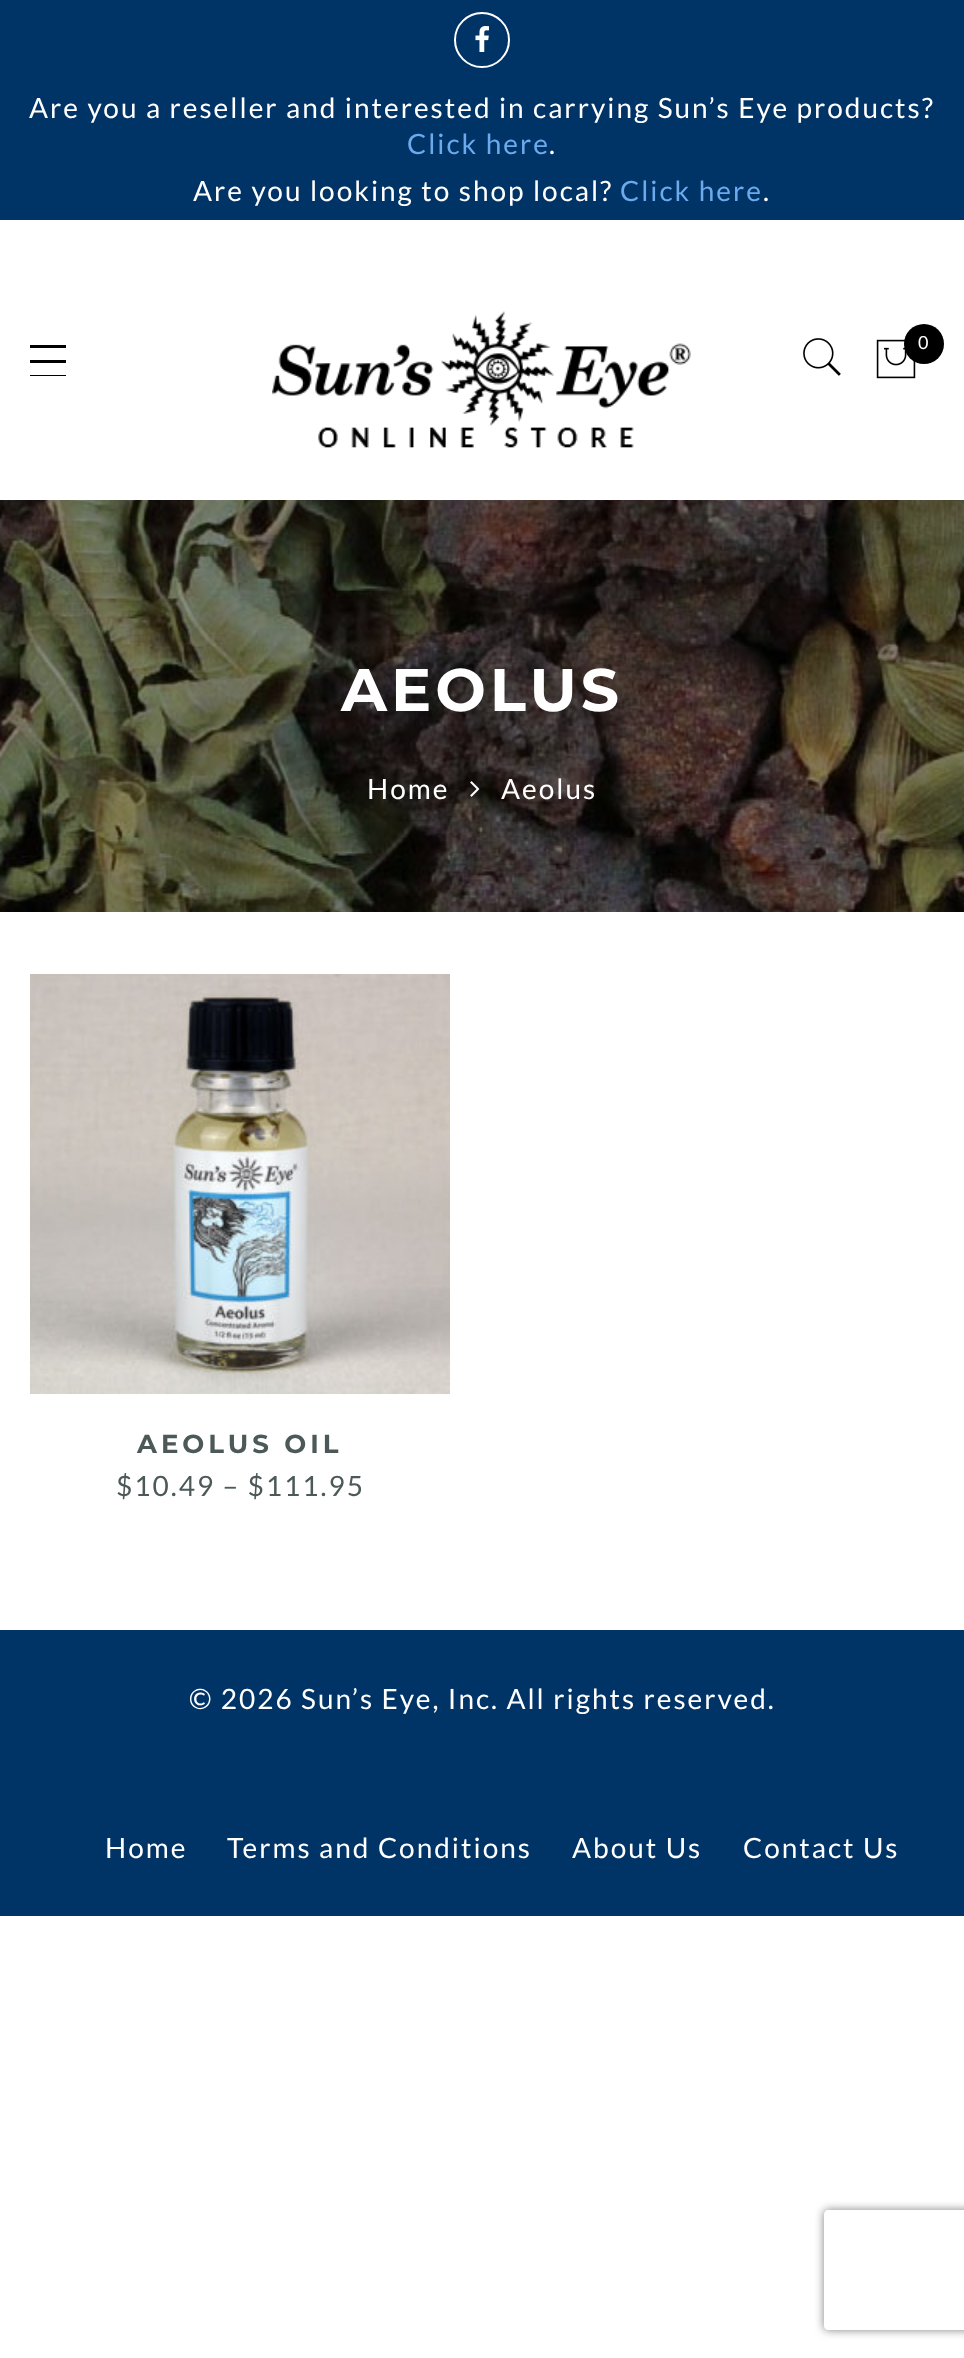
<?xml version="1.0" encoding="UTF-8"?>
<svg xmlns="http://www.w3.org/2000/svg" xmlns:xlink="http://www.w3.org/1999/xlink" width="964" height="2358">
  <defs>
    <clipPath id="clip1"><path d="M 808 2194 h 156 v 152 h -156 z m 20 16 h 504 c 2 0 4 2 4 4 v 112 c 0 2 -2 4 -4 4 h -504 c -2 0 -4 -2 -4 -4 v -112 c 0 -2 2 -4 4 -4 z" clip-rule="evenodd" /></clipPath>
  </defs>
  <rect width="100%" height="100%" fill="#ffffff" />
  <rect width="964" height="220" fill="#003366" />
  <circle cx="482" cy="40" r="27" fill="none" stroke="#ffffff" stroke-width="2" />
  <image x="475" y="26" width="14" height="26" xlink:href="image1.png" />
  <image x="272" y="311" width="419" height="137" xlink:href="image2.png" />
  <image x="803" y="338" width="38" height="38" xlink:href="image3.png" />
  <image x="876" y="339" width="40" height="40" xlink:href="image4.png" />
  <circle cx="924" cy="344" r="20" fill="#000000" />
  <rect x="30" y="345" width="36" height="3" fill="#000000" />
  <rect x="30" y="360" width="36" height="3" fill="#000000" />
  <rect x="30" y="375" width="36" height="1" fill="#000000" />
  <image x="0" y="500" width="964" height="412" xlink:href="image5.png" />
  <image x="470" y="781" width="10" height="16" xlink:href="image6.png" />
  <image x="30" y="974" width="420" height="420" xlink:href="image7.png" />
  <rect y="1630" width="964" height="286" fill="#003366" />
  <g clip-path="url(#clip1)">
    <rect x="824" y="2210" width="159" height="120" rx="4" fill="#808080" filter="blur(5px)" />
  </g>
  <text x="29" y="118" style="font-family: Lato; font-size: 28px; letter-spacing: 2px; fill: #ffffff">Are you a reseller and interested in carrying Sun’s Eye products?</text>
  <text x="407" y="154" style="font-family: Lato; font-size: 28px; letter-spacing: 2px; fill: #6caaee">Click here</text>
  <text x="549" y="154" style="font-family: Lato; font-size: 28px; letter-spacing: 2px; fill: #ffffff">.</text>
  <text x="193" y="201" style="font-family: Lato; font-size: 28px; letter-spacing: 2px; fill: #ffffff">Are you looking to shop local?</text>
  <text x="620" y="201" style="font-family: Lato; font-size: 28px; letter-spacing: 2px; fill: #6caaee">Click here</text>
  <text x="763" y="201" style="font-family: Lato; font-size: 28px; letter-spacing: 2px; fill: #ffffff">.</text>
  <text x="918" y="349" style="font-family: Lato; font-size: 18px; letter-spacing: 2px; fill: #ffffff">0</text>
  <text x="341" y="711" style="font-family: Montserrat; font-size: 60px; font-weight: bold; letter-spacing: 4px; fill: #ffffff">AEOLUS</text>
  <text x="367" y="799" style="font-family: Lato; font-size: 28px; letter-spacing: 2px; fill: #ffffff">Home</text>
  <text x="501" y="799" style="font-family: Lato; font-size: 28px; letter-spacing: 2px; fill: #ffffff">Aeolus</text>
  <text x="137" y="1453" style="font-family: Montserrat; font-size: 26px; font-weight: bold; letter-spacing: 4px; fill: #4d5959">AEOLUS OIL</text>
  <text x="116" y="1496" style="font-family: Lato; font-size: 28px; letter-spacing: 2px; fill: #4d5959">$10.49 – $111.95</text>
  <text x="189" y="1709" style="font-family: Lato; font-size: 28px; letter-spacing: 2px; fill: #ffffff">© 2026 Sun’s Eye, Inc. All rights reserved.</text>
  <text x="105" y="1858" style="font-family: Lato; font-size: 28px; letter-spacing: 2px; fill: #ffffff">Home</text>
  <text x="227" y="1858" style="font-family: Lato; font-size: 28px; letter-spacing: 2px; fill: #ffffff">Terms and Conditions</text>
  <text x="572" y="1858" style="font-family: Lato; font-size: 28px; letter-spacing: 2px; fill: #ffffff">About Us</text>
  <text x="743" y="1858" style="font-family: Lato; font-size: 28px; letter-spacing: 2px; fill: #ffffff">Contact Us</text>
</svg>
